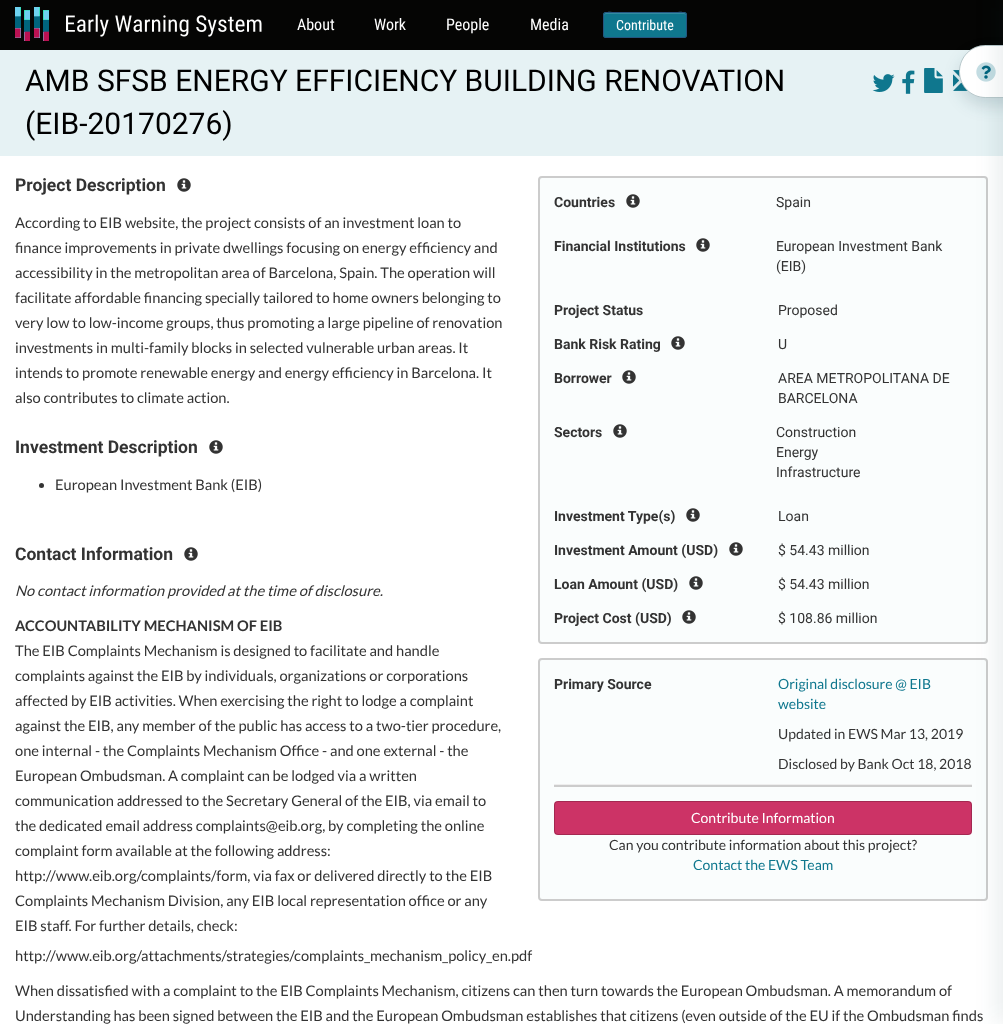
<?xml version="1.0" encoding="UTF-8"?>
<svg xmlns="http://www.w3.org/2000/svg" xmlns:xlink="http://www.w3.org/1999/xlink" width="1003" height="1024">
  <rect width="100%" height="100%" fill="#ffffff" />
  <rect width="1003" height="50" fill="#050504" />
  <image x="15" y="7" width="247" height="34" xlink:href="image1.png" />
  <rect x="603" y="12" width="84" height="26" rx="3" fill="#0f778e" />
  <path d="M 606 14 h 78 c 1 0 2 1 2 2 c 0 -7 -12 -3 -15 -3 h -52 c -3 0 -15 -4 -15 3 c 0 -1 1 -2 2 -2 z" fill="#338b9f" />
  <rect x="603.5" y="12.5" width="83" height="25" rx="2.5" fill="none" stroke="#245580" />
  <rect y="50" width="1003" height="106" fill="#e6f2f4" />
  <image x="953" y="70" width="15" height="21" xlink:href="image5.png" />
  <image x="924" y="68" width="19" height="25" xlink:href="image4.png" />
  <rect x="959" y="53" width="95" height="53" rx="26.5" fill="#0e3841" fill-opacity="0.15" filter="blur(8px)" />
  <path d="M 985.5 45 h 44.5 v 53 h -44.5 c -14.5 0 -26.5 -12 -26.5 -26.5 c 0 -14.5 12 -26.5 26.5 -26.5 z" fill="#ffffff" />
  <path d="M 985.5 45.5 h 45 v 52 h -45 c -14.5 0 -26 -11.5 -26 -26 c 0 -14.5 11.5 -26 26 -26 z" fill="none" stroke="#134954" stroke-opacity="0.3" />
  <image x="976" y="62" width="20" height="20" xlink:href="image6.png" />
  <rect x="539" y="177" width="448" height="466" rx="3" fill="#fafdfd" stroke="#cccccc" stroke-width="2" />
  <rect x="539" y="659" width="448" height="241" rx="3" fill="#fafdfd" stroke="#cccccc" stroke-width="2" />
  <rect x="554" y="785" width="418" height="2" fill="#cccccc" />
  <rect x="554" y="784" width="418" height="1" fill="#eeeeee" />
  <rect x="554" y="801" width="418" height="34" rx="4" fill="#cc3366" />
  <rect x="554.5" y="801.5" width="417" height="33" rx="3.5" fill="none" stroke="#000000" stroke-opacity="0.2" />
  <rect x="999" width="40" height="1024" fill="#0e3841" fill-opacity="0.1" filter="blur(12px)" />
  <image x="872" y="74" width="23" height="18" xlink:href="image2.png" />
  <image x="902" y="70" width="13" height="24" xlink:href="image3.png" />
  <image x="177" y="178" width="14" height="14" xlink:href="image7.png" />
  <image x="626" y="194" width="14" height="14" xlink:href="image8.png" />
  <image x="696" y="238" width="14" height="14" xlink:href="image8.png" />
  <image x="671" y="336" width="14" height="14" xlink:href="image8.png" />
  <image x="622" y="370" width="14" height="14" xlink:href="image8.png" />
  <image x="613" y="424" width="14" height="14" xlink:href="image8.png" />
  <image x="686" y="508" width="14" height="14" xlink:href="image8.png" />
  <image x="729" y="542" width="14" height="14" xlink:href="image8.png" />
  <image x="689" y="576" width="14" height="14" xlink:href="image8.png" />
  <image x="682" y="610" width="14" height="14" xlink:href="image8.png" />
  <image x="209" y="440" width="14" height="14" xlink:href="image7.png" />
  <circle cx="41.5" cy="485.5" r="2.5" fill="#333333" />
  <image x="184" y="547" width="14" height="14" xlink:href="image7.png" />
  <text x="297" y="30" style="font-family: Roboto Condensed; font-size: 16px; fill: #ffffff">About</text>
  <text x="374" y="30" style="font-family: Roboto Condensed; font-size: 16px; fill: #ffffff">Work</text>
  <text x="446" y="30" style="font-family: Roboto Condensed; font-size: 16px; fill: #ffffff">People</text>
  <text x="530" y="30" style="font-family: Roboto Condensed; font-size: 16px; fill: #ffffff">Media</text>
  <text x="616" y="30" style="font-family: Roboto Condensed; font-size: 14px; fill: #ffffff">Contribute</text>
  <text x="25" y="91" style="font-family: Roboto; font-size: 30px; fill: #000000">AMB SFSB ENERGY EFFICIENCY BUILDING RENOVATION</text>
  <text x="25" y="134" style="font-family: Roboto; font-size: 30px; fill: #000000">(EIB-20170276)</text>
  <text x="15" y="191" style="font-family: Roboto; font-size: 17.5px; font-weight: bold; fill: #333333">Project Description</text>
  <text x="15" y="228" style="font-family: Lato; font-size: 14.67px; fill: #333333">According to EIB website, the project consists of an investment loan to</text>
  <text x="15" y="253" style="font-family: Lato; font-size: 14.67px; fill: #333333">finance improvements in private dwellings focusing on energy efficiency and</text>
  <text x="15" y="278" style="font-family: Lato; font-size: 14.67px; fill: #333333">accessibility in the metropolitan area of Barcelona, Spain. The operation will</text>
  <text x="15" y="303" style="font-family: Lato; font-size: 14.67px; fill: #333333">facilitate affordable financing specially tailored to home owners belonging to</text>
  <text x="15" y="328" style="font-family: Lato; font-size: 14.67px; fill: #333333">very low to low-income groups, thus promoting a large pipeline of renovation</text>
  <text x="15" y="353" style="font-family: Lato; font-size: 14.67px; fill: #333333">investments in multi-family blocks in selected vulnerable urban areas. It</text>
  <text x="15" y="378" style="font-family: Lato; font-size: 14.67px; fill: #333333">intends to promote renewable energy and energy efficiency in Barcelona. It</text>
  <text x="15" y="403" style="font-family: Lato; font-size: 14.67px; fill: #333333">also contributes to climate action.</text>
  <text x="554" y="207" style="font-family: Roboto; font-size: 14px; font-weight: bold; fill: #333333">Countries</text>
  <text x="776" y="207" style="font-family: Roboto; font-size: 14px; fill: #333333">Spain</text>
  <text x="554" y="251" style="font-family: Roboto; font-size: 14px; font-weight: bold; fill: #333333">Financial Institutions</text>
  <text x="776" y="251" style="font-family: Roboto; font-size: 14px; fill: #333333">European Investment Bank</text>
  <text x="776" y="271" style="font-family: Roboto; font-size: 14px; fill: #333333">(EIB)</text>
  <text x="554" y="315" style="font-family: Roboto; font-size: 14px; font-weight: bold; fill: #333333">Project Status</text>
  <text x="778" y="315" style="font-family: Roboto; font-size: 14px; fill: #333333">Proposed</text>
  <text x="554" y="349" style="font-family: Roboto; font-size: 14px; font-weight: bold; fill: #333333">Bank Risk Rating</text>
  <text x="778" y="349" style="font-family: Roboto; font-size: 14px; fill: #333333">U</text>
  <text x="554" y="383" style="font-family: Roboto; font-size: 14px; font-weight: bold; fill: #333333">Borrower</text>
  <text x="778" y="383" style="font-family: Roboto; font-size: 14px; fill: #333333">AREA METROPOLITANA DE</text>
  <text x="778" y="403" style="font-family: Roboto; font-size: 14px; fill: #333333">BARCELONA</text>
  <text x="554" y="437" style="font-family: Roboto; font-size: 14px; font-weight: bold; fill: #333333">Sectors</text>
  <text x="776" y="437" style="font-family: Roboto; font-size: 14px; fill: #333333">Construction</text>
  <text x="776" y="457" style="font-family: Roboto; font-size: 14px; fill: #333333">Energy</text>
  <text x="776" y="477" style="font-family: Roboto; font-size: 14px; fill: #333333">Infrastructure</text>
  <text x="554" y="521" style="font-family: Roboto; font-size: 14px; font-weight: bold; fill: #333333">Investment Type(s)</text>
  <text x="778" y="521" style="font-family: Roboto; font-size: 14px; fill: #333333">Loan</text>
  <text x="554" y="555" style="font-family: Roboto; font-size: 14px; font-weight: bold; fill: #333333">Investment Amount (USD)</text>
  <text x="778" y="555" style="font-family: Roboto; font-size: 14px; fill: #333333">$ 54.43 million</text>
  <text x="554" y="589" style="font-family: Roboto; font-size: 14px; font-weight: bold; fill: #333333">Loan Amount (USD)</text>
  <text x="778" y="589" style="font-family: Roboto; font-size: 14px; fill: #333333">$ 54.43 million</text>
  <text x="554" y="623" style="font-family: Roboto; font-size: 14px; font-weight: bold; fill: #333333">Project Cost (USD)</text>
  <text x="778" y="623" style="font-family: Roboto; font-size: 14px; fill: #333333">$ 108.86 million</text>
  <text x="554" y="689" style="font-family: Roboto; font-size: 14px; font-weight: bold; fill: #333333">Primary Source</text>
  <text x="778" y="689" style="font-family: Lato; font-size: 14px; fill: #0f778e">Original disclosure @ EIB</text>
  <text x="778" y="709" style="font-family: Lato; font-size: 14px; fill: #0f778e">website</text>
  <text x="778" y="739" style="font-family: Lato; font-size: 14px; fill: #333333">Updated in EWS Mar 13, 2019</text>
  <text x="778" y="769" style="font-family: Lato; font-size: 14px; fill: #333333">Disclosed by Bank Oct 18, 2018</text>
  <text x="691" y="823" style="font-family: Lato; font-size: 14px; fill: #ffffff">Contribute Information</text>
  <text x="609" y="850" style="font-family: Lato; font-size: 14px; fill: #333333">Can you contribute information about this project?</text>
  <text x="693" y="870" style="font-family: Lato; font-size: 14px; fill: #0f778e">Contact the EWS Team</text>
  <text x="15" y="453" style="font-family: Roboto; font-size: 17.5px; font-weight: bold; fill: #333333">Investment Description</text>
  <text x="55" y="490" style="font-family: Lato; font-size: 14.67px; fill: #333333">European Investment Bank (EIB)</text>
  <text x="15" y="560" style="font-family: Roboto; font-size: 17.5px; font-weight: bold; fill: #333333">Contact Information</text>
  <text x="15" y="596" style="font-family: Lato; font-size: 14.67px; font-style: italic; fill: #333333">No contact information provided at the time of disclosure.</text>
  <text x="15" y="631" style="font-family: Lato; font-size: 14.67px; font-weight: bold; fill: #333333">ACCOUNTABILITY MECHANISM OF EIB</text>
  <text x="15" y="656" style="font-family: Lato; font-size: 14.67px; fill: #333333">The EIB Complaints Mechanism is designed to facilitate and handle</text>
  <text x="15" y="681" style="font-family: Lato; font-size: 14.67px; fill: #333333">complaints against the EIB by individuals, organizations or corporations</text>
  <text x="15" y="706" style="font-family: Lato; font-size: 14.67px; fill: #333333">affected by EIB activities. When exercising the right to lodge a complaint</text>
  <text x="15" y="731" style="font-family: Lato; font-size: 14.67px; fill: #333333">against the EIB, any member of the public has access to a two-tier procedure,</text>
  <text x="15" y="756" style="font-family: Lato; font-size: 14.67px; fill: #333333">one internal - the Complaints Mechanism Office - and one external - the</text>
  <text x="15" y="781" style="font-family: Lato; font-size: 14.67px; fill: #333333">European Ombudsman. A complaint can be lodged via a written</text>
  <text x="15" y="806" style="font-family: Lato; font-size: 14.67px; fill: #333333">communication addressed to the Secretary General of the EIB, via email to</text>
  <text x="15" y="831" style="font-family: Lato; font-size: 14.67px; fill: #333333">the dedicated email address complaints@eib.org, by completing the online</text>
  <text x="15" y="856" style="font-family: Lato; font-size: 14.67px; fill: #333333">complaint form available at the following address:</text>
  <text x="15" y="881" style="font-family: Lato; font-size: 14.67px; fill: #333333">http://www.eib.org/complaints/form, via fax or delivered directly to the EIB</text>
  <text x="15" y="906" style="font-family: Lato; font-size: 14.67px; fill: #333333">Complaints Mechanism Division, any EIB local representation office or any</text>
  <text x="15" y="931" style="font-family: Lato; font-size: 14.67px; fill: #333333">EIB staff. For further details, check:</text>
  <text x="15" y="961" style="font-family: Lato; font-size: 14.67px; fill: #333333">http://www.eib.org/attachments/strategies/complaints_mechanism_policy_en.pdf</text>
  <text x="15" y="996" style="font-family: Lato; font-size: 14.67px; fill: #333333">When dissatisfied with a complaint to the EIB Complaints Mechanism, citizens can then turn towards the European Ombudsman. A memorandum of</text>
  <text x="15" y="1021" style="font-family: Lato; font-size: 14.67px; fill: #333333">Understanding has been signed between the EIB and the European Ombudsman establishes that citizens (even outside of the EU if the Ombudsman finds</text>
</svg>
